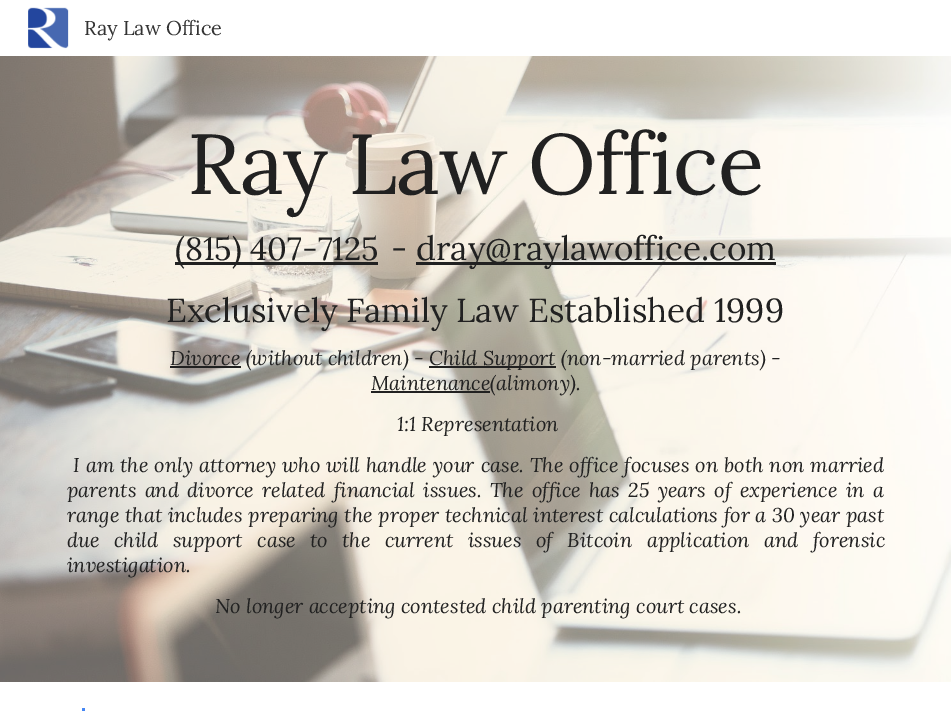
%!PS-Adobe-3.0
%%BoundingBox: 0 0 951 711
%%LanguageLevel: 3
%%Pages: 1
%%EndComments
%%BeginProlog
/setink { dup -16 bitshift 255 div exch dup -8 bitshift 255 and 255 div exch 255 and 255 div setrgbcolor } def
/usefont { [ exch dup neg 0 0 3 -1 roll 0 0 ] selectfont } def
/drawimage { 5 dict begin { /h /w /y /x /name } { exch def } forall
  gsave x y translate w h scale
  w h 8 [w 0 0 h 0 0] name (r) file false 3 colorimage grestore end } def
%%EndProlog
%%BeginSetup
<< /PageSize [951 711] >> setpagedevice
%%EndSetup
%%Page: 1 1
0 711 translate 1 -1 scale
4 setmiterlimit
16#FFFFFF setink
0 0 951 711 rectfill
(img1.raw) 28 7 41 42 drawimage
/Lora-Regular 20 usefont
16#333333 setink
84 35 moveto (Ray Law Office) show
(img2.raw) 0 56 951 626 drawimage
/Lora-Regular 85.25 usefont
16#212121 setink
187 194 moveto -1 0 (Ray Law Office) ashow
175 262 203 3 rectfill
/Lora-Regular 32 usefont
175 260 moveto (\(815\) 407-7125) show
/Lora-Regular 33.3 usefont
391 260 moveto (-) show
416 262 360 3 rectfill
416 260 moveto (dray@raylawoffice.com) show
166 322 moveto (Exclusively Family Law Established 1999) show
170 366 71 2 rectfill
/Lora-Italic 20 usefont
170 365 moveto (Divorce \(without children\) -) show
429 366 127 2 rectfill
429 365 moveto (Child Support \(non-married parents\) -) show
371 391 119 2 rectfill
371 390 moveto (Maintenance\(alimony\).) show
397 431 moveto (1:1 Representation) show
73 472 moveto 0.75 0 32 (I am the only attorney who will handle your case. The office focuses on both non married) widthshow
67 497 moveto 3.1 0 32 (parents and divorce related financial issues. The office has 25 years of experience in a) widthshow
67 522 moveto 0.4 0 32 (range that includes preparing the proper technical interest calculations for a 30 year past) widthshow
67 547 moveto 9.25 0 32 (due child support case to) widthshow
342 547 moveto 9.25 0 32 (the current issues of Bitcoin application and forensic) widthshow
67 572 moveto (investigation.) show
215 613 moveto (No longer accepting contested child parenting court cases.) show
gsave
70 708 14 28 rectclip
16#4486F4 setink
3 setlinewidth
82.5 710 moveto 99 708.5 101 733.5 84.5 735 curveto stroke
grestore
gsave
82 708 3 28 rectclip
16#4486F4 setink
3 setlinewidth
75 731 moveto 72 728 71 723.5 71.5 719.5 curveto 74.5 705 96.5 707 96.5 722 curveto 96.5 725.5 95 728.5 93 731 curveto stroke
grestore
gsave
84 708 14 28 rectclip
16#4486F4 setink
3 setlinewidth
82.5 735 moveto 66 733.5 68.5 708.5 84.5 710 curveto stroke
grestore
gsave
70 708 14 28 rectclip
16#4486F4 setink
3 setlinewidth
82.5 710 moveto 99 708.5 101 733.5 84.5 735 curveto 82.5 710 moveto 99 708.5 101 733.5 84.5 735 curveto 82.5 710 moveto 99 708.5 101 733.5 84.5 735 curveto stroke
grestore
showpage
%%EOF
